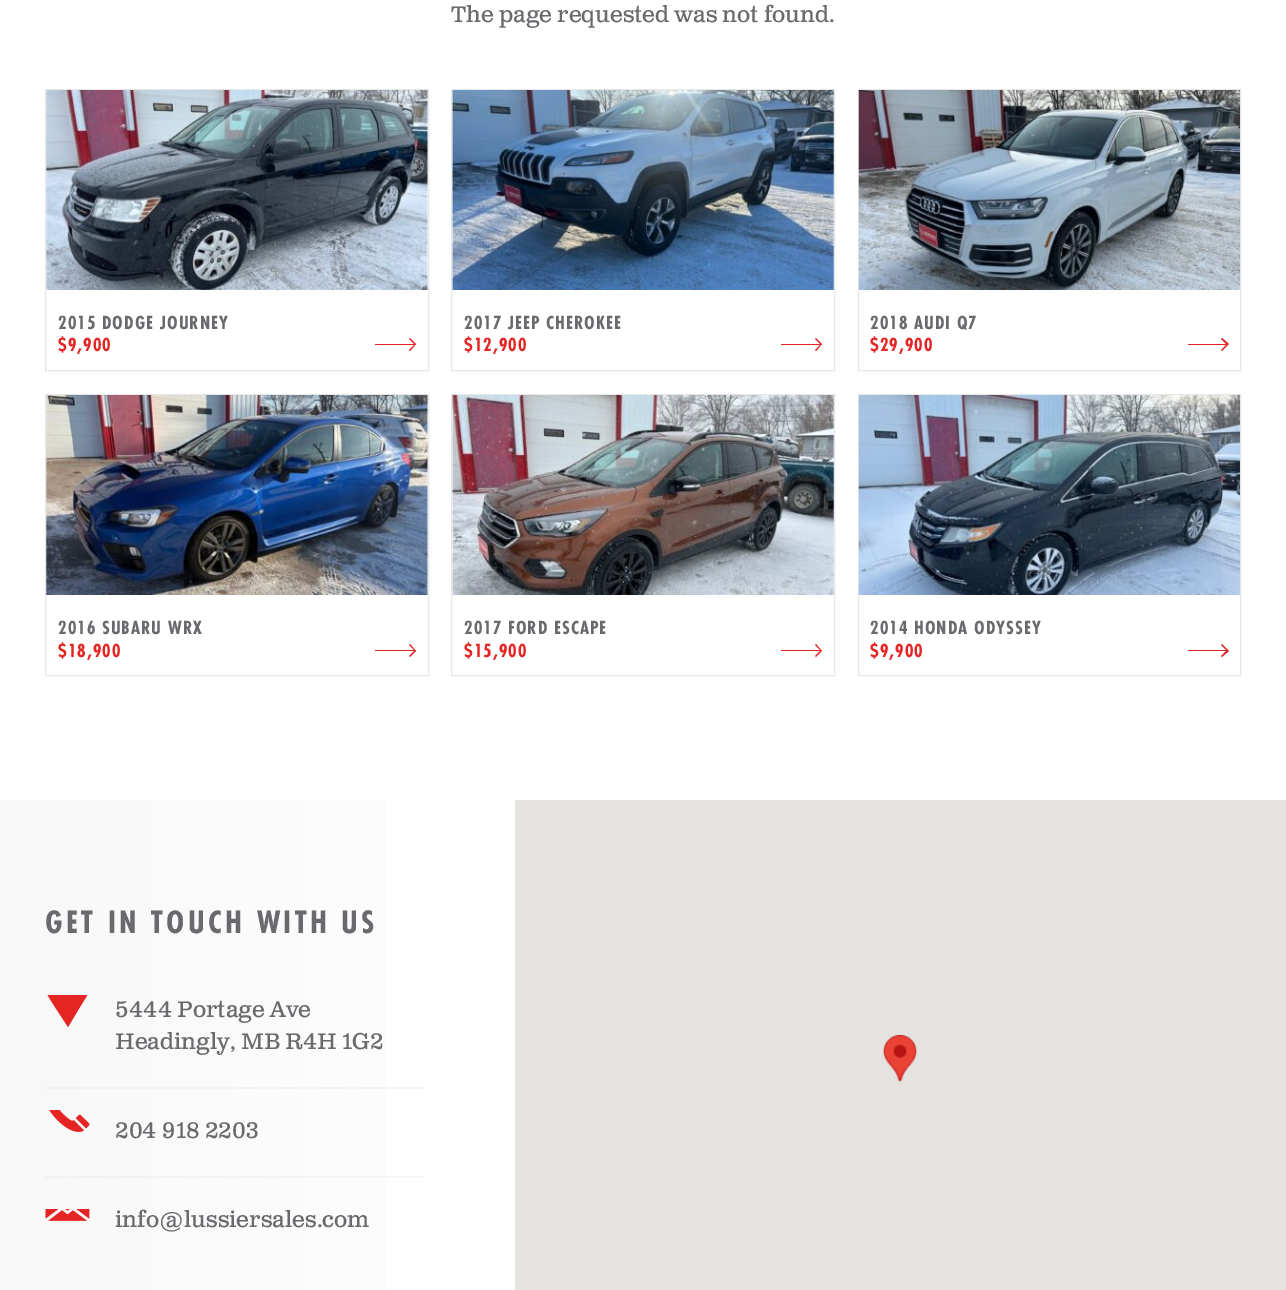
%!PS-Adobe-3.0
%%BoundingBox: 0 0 1286 1290
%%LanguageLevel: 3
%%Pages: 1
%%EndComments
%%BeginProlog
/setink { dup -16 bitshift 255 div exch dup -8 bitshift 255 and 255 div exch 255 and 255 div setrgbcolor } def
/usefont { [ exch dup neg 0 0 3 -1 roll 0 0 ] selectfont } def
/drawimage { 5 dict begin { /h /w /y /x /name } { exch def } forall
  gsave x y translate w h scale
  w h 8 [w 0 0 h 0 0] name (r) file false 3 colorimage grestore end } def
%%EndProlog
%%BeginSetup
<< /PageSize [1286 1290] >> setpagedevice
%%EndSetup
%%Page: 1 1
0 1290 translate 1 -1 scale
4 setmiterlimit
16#FFFFFF setink
0 0 1286 1290 rectfill
/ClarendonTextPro-Regular 22.5 usefont
16#696A6D setink
451 22 moveto (The page requested was not found.) show
16#E6E7E8 setink
45.5 89.5 383 281 rectstroke
(img1.raw) 46 90 382 200 drawimage
/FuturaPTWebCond-Bold 19.75 usefont
16#696A6D setink
58 329 moveto 1 0 (2015 DODGE JOURNEY) ashow
16#E52424 setink
58 351 moveto 1 0 ($9,900) ashow
410 338 moveto 409 339 lineto 414 344 lineto 375 344 lineto 375 345 lineto 414 345 lineto 409 350 lineto 410 351 lineto 416 344 lineto closepath fill
16#E6E7E8 setink
451.5 89.5 383 281 rectstroke
(img2.raw) 452 90 382 200 drawimage
16#696A6D setink
464 329 moveto 1 0 (2017 JEEP CHEROKEE) ashow
16#E52424 setink
464 351 moveto 1 0 ($12,900) ashow
816 338 moveto 815 339 lineto 820 344 lineto 781 344 lineto 781 345 lineto 820 345 lineto 815 350 lineto 816 351 lineto 822 344 lineto closepath fill
16#E6E7E8 setink
858.5 89.5 382 281 rectstroke
(img3.raw) 858 90 382 200 drawimage
16#696A6D setink
870 329 moveto 1 0 (2018 AUDI Q7) ashow
16#E52424 setink
870 351 moveto 1 0 ($29,900) ashow
1222 338 moveto 1221 339 lineto 1226 344 lineto 1188 344 lineto 1188 345 lineto 1226 345 lineto 1221 350 lineto 1222 351 lineto 1229 344 lineto closepath fill
16#E6E7E8 setink
45.5 394.5 383 281 rectstroke
(img4.raw) 46 395 382 200 drawimage
16#696A6D setink
58 634 moveto 1 0 (2016 SUBARU WRX) ashow
16#E52424 setink
58 657 moveto 1 0 ($18,900) ashow
410 644 moveto 409 645 lineto 414 650 lineto 375 650 lineto 375 651 lineto 414 651 lineto 409 656 lineto 410 657 lineto 416 651 lineto closepath fill
16#E6E7E8 setink
451.5 394.5 383 281 rectstroke
(img5.raw) 452 395 382 200 drawimage
16#696A6D setink
464 634 moveto 1 0 (2017 FORD ESCAPE) ashow
16#E52424 setink
464 657 moveto 1 0 ($15,900) ashow
816 644 moveto 815 645 lineto 820 650 lineto 781 650 lineto 781 651 lineto 820 651 lineto 815 656 lineto 816 657 lineto 822 651 lineto closepath fill
16#E6E7E8 setink
858.5 394.5 382 281 rectstroke
(img6.raw) 858 395 382 200 drawimage
16#696A6D setink
870 634 moveto 1 0 (2014 HONDA ODYSSEY) ashow
16#E52424 setink
870 657 moveto 1 0 ($9,900) ashow
1222 644 moveto 1221 645 lineto 1226 650 lineto 1188 650 lineto 1188 651 lineto 1226 651 lineto 1221 656 lineto 1222 657 lineto 1229 651 lineto closepath fill
gsave 0 800 moveto 386 800 lineto 386 1290 lineto 0 1290 lineto closepath clip newpath
<< /ShadingType 2 /ColorSpace /DeviceRGB /Coords [515 1081 0 1081] /Extend [true true] /Function << /FunctionType 2 /Domain [0 1] /C0 [0.996 1 1] /C1 [0.973 0.973 0.976] /N 1 >> >> shfill grestore
/FuturaPTWebCond-Bold 33.75 usefont
16#696A6D setink
45 933 moveto 3.4 0 (GET IN TOUCH WITH US) ashow
16#E6E7E8 setink
1.2 setlinewidth
[1.25 1.25] 0 setdash
45 1088 moveto 425 1088 lineto stroke
gsave
45 995 45 65 rectclip
16#E52424 setink
67 991 moveto 59 991 59 979 67 979 curveto 76 979 76 991 67 991 curveto 90 985 moveto 90 979 87 974 83 969 curveto 67 954 40 969 46 991 curveto 48 997 52 1002 55 1007 curveto 68 1027 lineto 80 1007 lineto 84 1000 90 993 90 985 curveto fill
grestore
/ClarendonTextPro-Regular 22.5 usefont
16#696A6D setink
115 1017 moveto (5444 Portage Ave) show
115 1049 moveto (Headingly, MB R4H 1G2) show
16#E6E7E8 setink
45 1177 moveto 425 1177 lineto stroke
(img7.raw) 49 1110 41 22 drawimage
16#696A6D setink
115 1138 moveto (204 918 2203) show
(img8.raw) 45 1209 45 12 drawimage
115 1227 moveto (info@lussiersales.com) show
16#E5E3DF setink
515 800 771 490 rectfill
(img9.raw) 883 1035 34 47 drawimage
showpage
%%EOF
